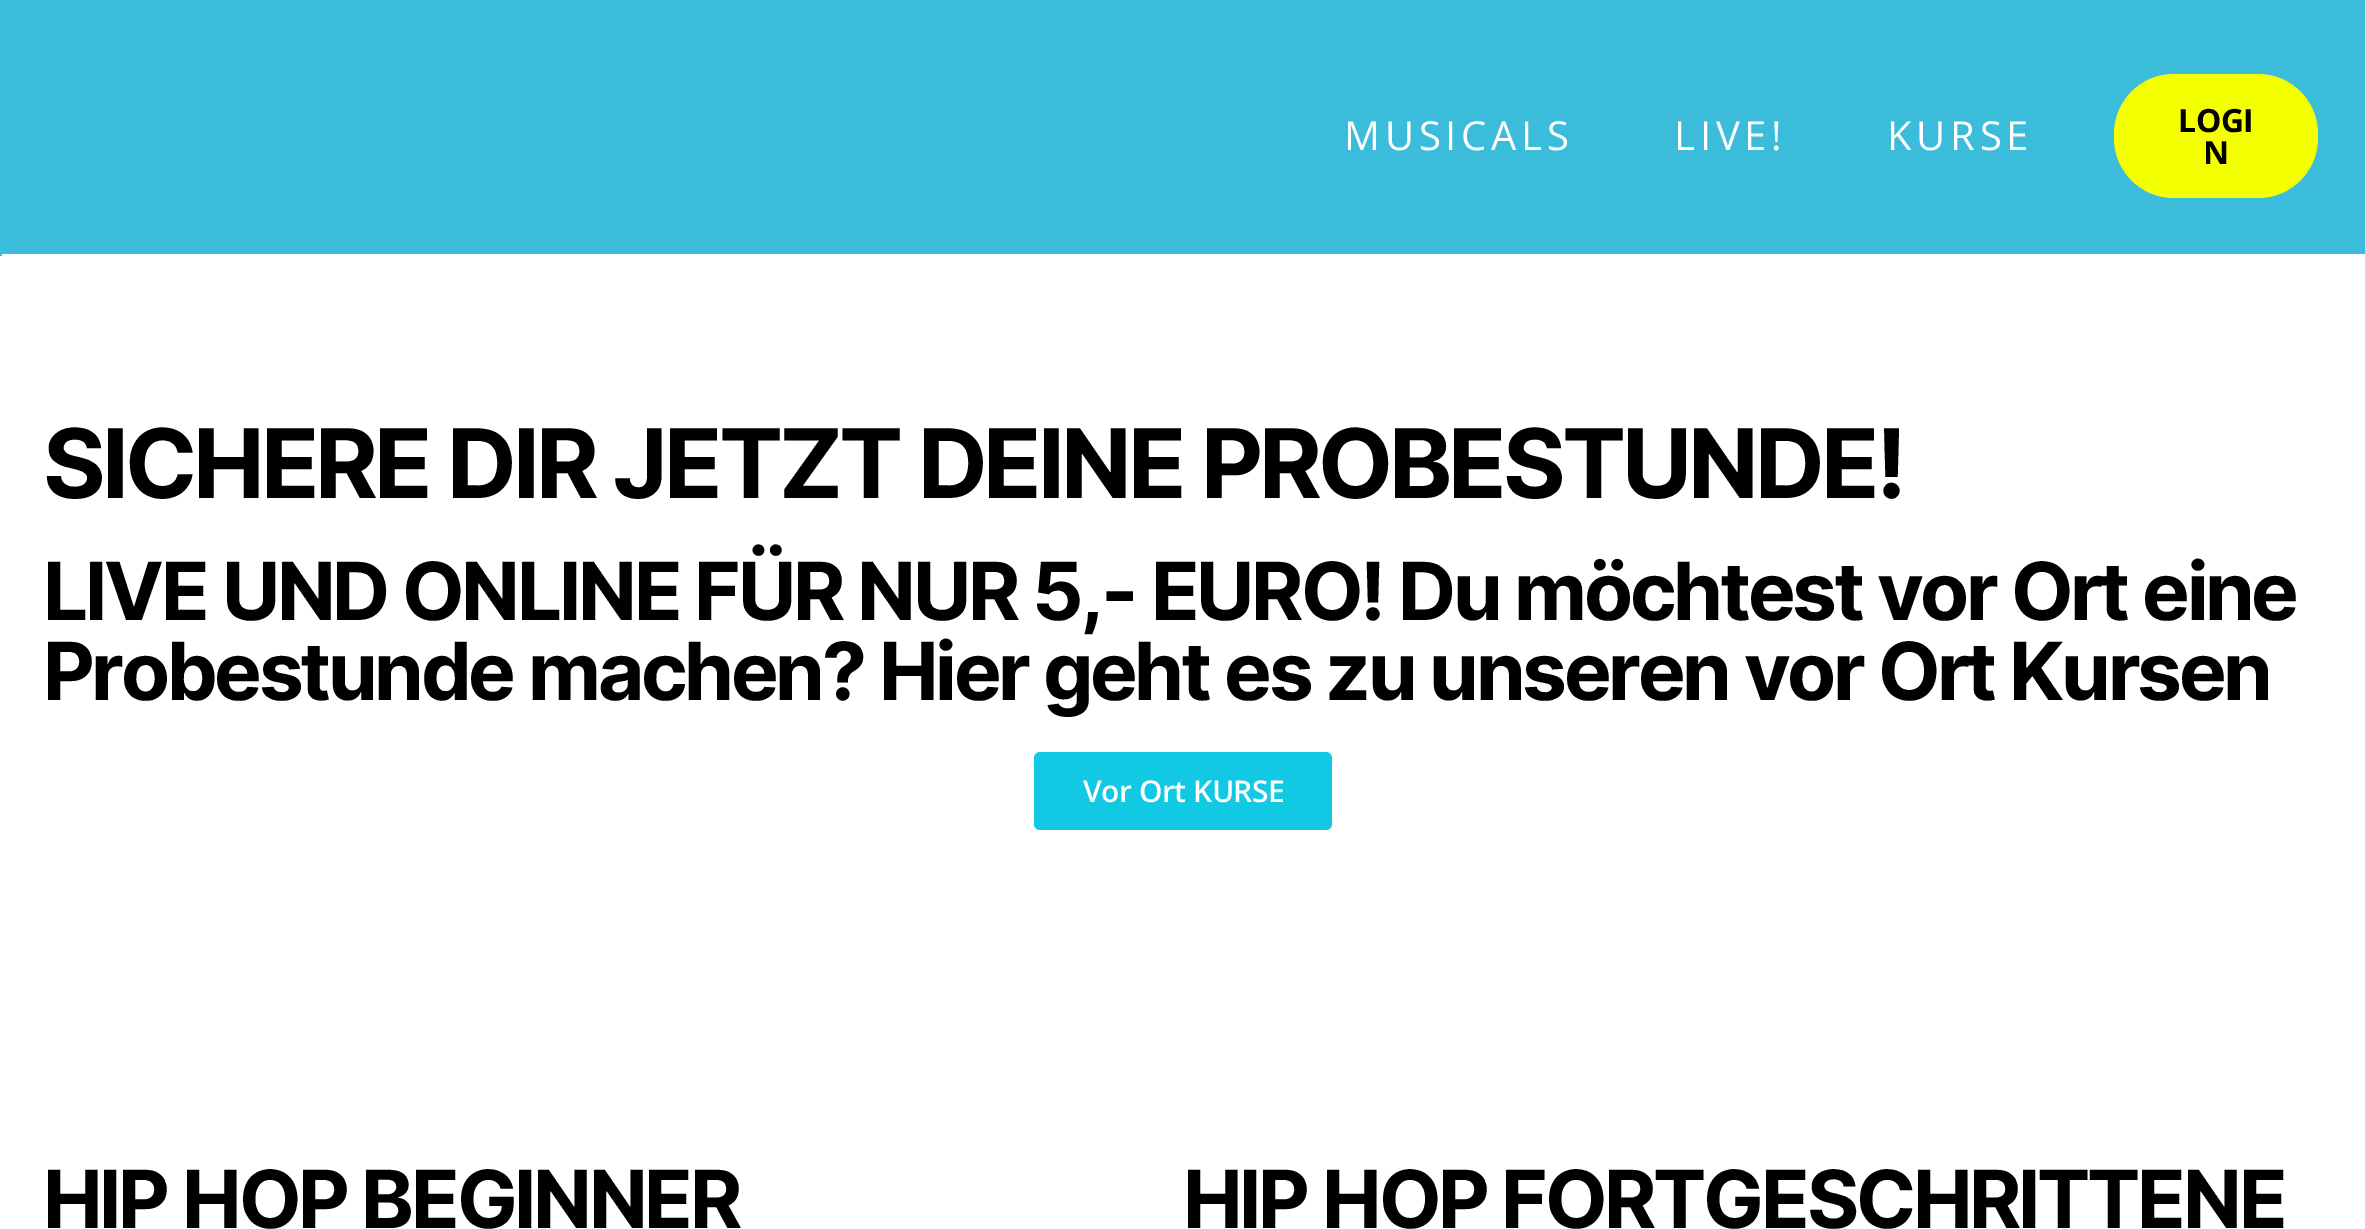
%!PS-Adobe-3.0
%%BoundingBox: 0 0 2365 1229
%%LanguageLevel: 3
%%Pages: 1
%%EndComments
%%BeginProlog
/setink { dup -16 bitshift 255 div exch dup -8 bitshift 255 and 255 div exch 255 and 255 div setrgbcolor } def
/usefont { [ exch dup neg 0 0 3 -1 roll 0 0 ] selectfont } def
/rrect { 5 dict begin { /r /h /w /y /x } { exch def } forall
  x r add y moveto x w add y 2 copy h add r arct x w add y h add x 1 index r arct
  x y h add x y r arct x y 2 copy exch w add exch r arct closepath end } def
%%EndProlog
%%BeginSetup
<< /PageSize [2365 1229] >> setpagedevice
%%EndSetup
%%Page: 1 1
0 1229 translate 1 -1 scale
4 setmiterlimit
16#FFFFFF setink
0 0 2365 1229 rectfill
16#3BBCDA setink
0 0 2365 256 rectfill
/OpenSans-Regular 40 usefont
16#FFFFFF setink
1344 150 moveto 4.75 0 (MUSICALS) ashow
1674 150 moveto 4.75 0 (LIVE!) ashow
1887 150 moveto 4.75 0 (KURSE) ashow
16#F4FF00 setink
2114 74 204 124 60 rrect fill
/OpenSans-Bold 32 usefont
16#000000 setink
2178 132 moveto -0.5 0 (LOGI) ashow
2203 164 moveto -0.5 0 (N) ashow
gsave
2 254 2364 236 rectclip
16#FFFFFF setink
1 268 moveto 1 254 lineto 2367 254 lineto 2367 491 lineto closepath fill
grestore
/Inter-Bold 96 usefont
43 498 moveto -4 0 (SICHERE DIR JETZT DEINE PROBESTUNDE!) ashow
/Inter-Bold 80 usefont
43 620 moveto -3.33 0 (LIVE UND ONLINE FÜR NUR 5,- EURO! Du möchtest vor Ort eine) ashow
43 700 moveto -3.33 0 (Probestunde machen? Hier geht es zu unseren vor Ort Kursen) ashow
16#12C9E4 setink
1034 752 298 78 6 rrect fill
/OpenSans-SemiBold 30 usefont
16#FFFFFF setink
1083 802 moveto -0.5 0 (Vor Ort KURSE) ashow
/Inter-Bold 80 usefont
16#000000 setink
43 1228 moveto -3.33 0 (HIP HOP BEGINNER) ashow
1183 1228 moveto -3.33 0 (HIP HOP FORTGESCHRITTENE) ashow
showpage
%%EOF
